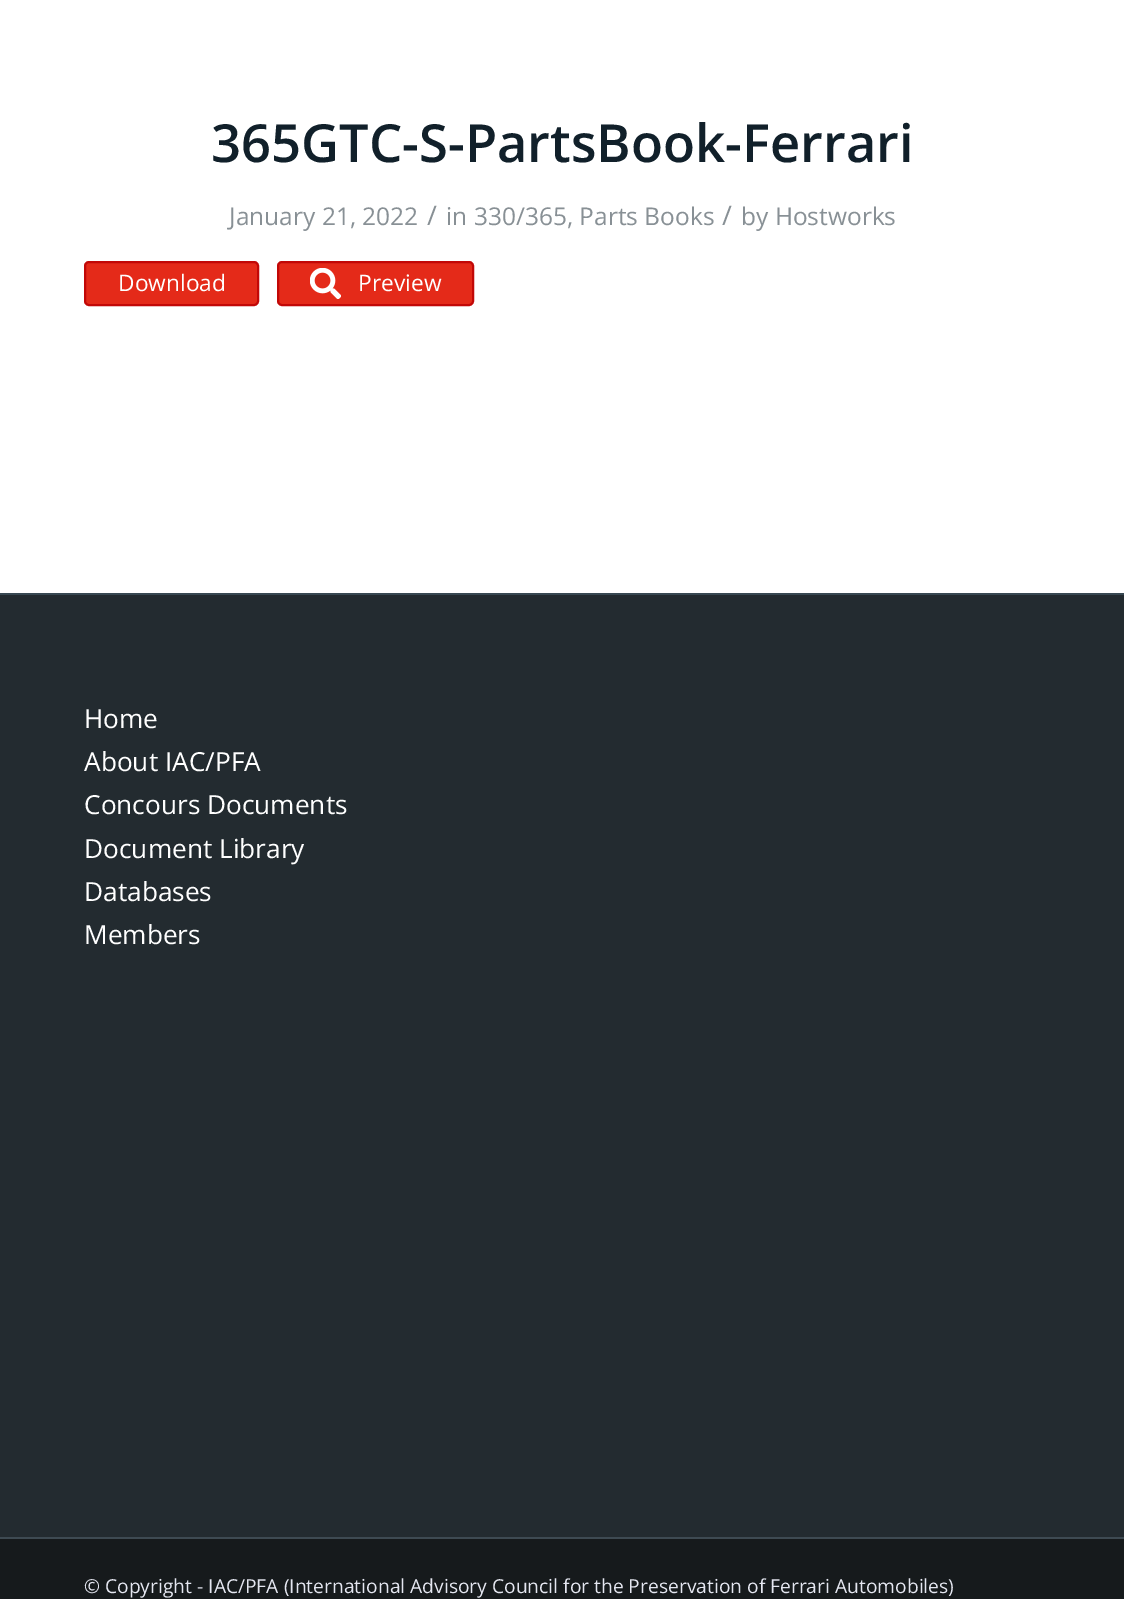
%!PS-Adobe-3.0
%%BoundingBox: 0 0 1124 1599
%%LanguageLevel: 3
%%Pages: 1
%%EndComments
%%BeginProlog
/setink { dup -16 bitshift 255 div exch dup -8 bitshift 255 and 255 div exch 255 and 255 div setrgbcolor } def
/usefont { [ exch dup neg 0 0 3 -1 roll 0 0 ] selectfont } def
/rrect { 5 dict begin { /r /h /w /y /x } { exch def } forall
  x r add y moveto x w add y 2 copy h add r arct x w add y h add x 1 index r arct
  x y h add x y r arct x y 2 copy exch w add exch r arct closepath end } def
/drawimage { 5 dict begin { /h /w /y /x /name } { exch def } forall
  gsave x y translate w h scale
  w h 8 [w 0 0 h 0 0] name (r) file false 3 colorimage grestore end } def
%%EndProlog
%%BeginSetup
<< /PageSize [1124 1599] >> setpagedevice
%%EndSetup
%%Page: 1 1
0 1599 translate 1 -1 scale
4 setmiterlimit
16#FFFFFF setink
0 0 1124 1599 rectfill
/OpenSans-SemiBold 52.5 usefont
16#11202A setink
211 162 moveto (365GTC-S-PartsBook-Ferrari) show
/OpenSans-Regular 24.5 usefont
16#889095 setink
229 225 moveto (January 21, 2022) show
/OpenSans-Regular 27 usefont
427 225 moveto (/) show
/OpenSans-Regular 24.5 usefont
446 225 moveto (in 330/365, Parts Books) show
/OpenSans-Regular 27 usefont
722 225 moveto (/) show
/OpenSans-Regular 24.5 usefont
741 225 moveto (by Hostworks) show
16#E42A19 setink
85 262 173 43 4 rrect gsave fill grestore
16#C20807 setink
2 setlinewidth
stroke
/OpenSans-Regular 22.75 usefont
16#FFFFFF setink
118 291 moveto (Download) show
16#E42A19 setink
278 262 195 43 4 rrect gsave fill grestore
16#C20807 setink
stroke
(img1.raw) 310 268 31 31 drawimage
16#FFFFFF setink
358 291 moveto (Preview) show
16#232B30 setink
0 595 1124 942 rectfill
16#384852 setink
0 593 1124 2 rectfill
/OpenSans-Regular 26.25 usefont
16#FFFFFF setink
[
    [(Home) 84 728]
    [(About IAC/PFA) 84 771]
    [(Concours Documents) 84 814]
    [(Document Library) 84 858]
    [(Databases) 84 901]
    [(Members) 84 944]
] { aload pop moveto show } forall
16#161A1C setink
0 1539 1124 60 rectfill
16#3E4A52 setink
0 1537 1124 2 rectfill
/OpenSans-Regular 19.25 usefont
16#E4E6F0 setink
84 1593 moveto (© Copyright - IAC/PFA \(International Advisory Council for the Preservation of Ferrari Automobiles\)) show
showpage
%%EOF
